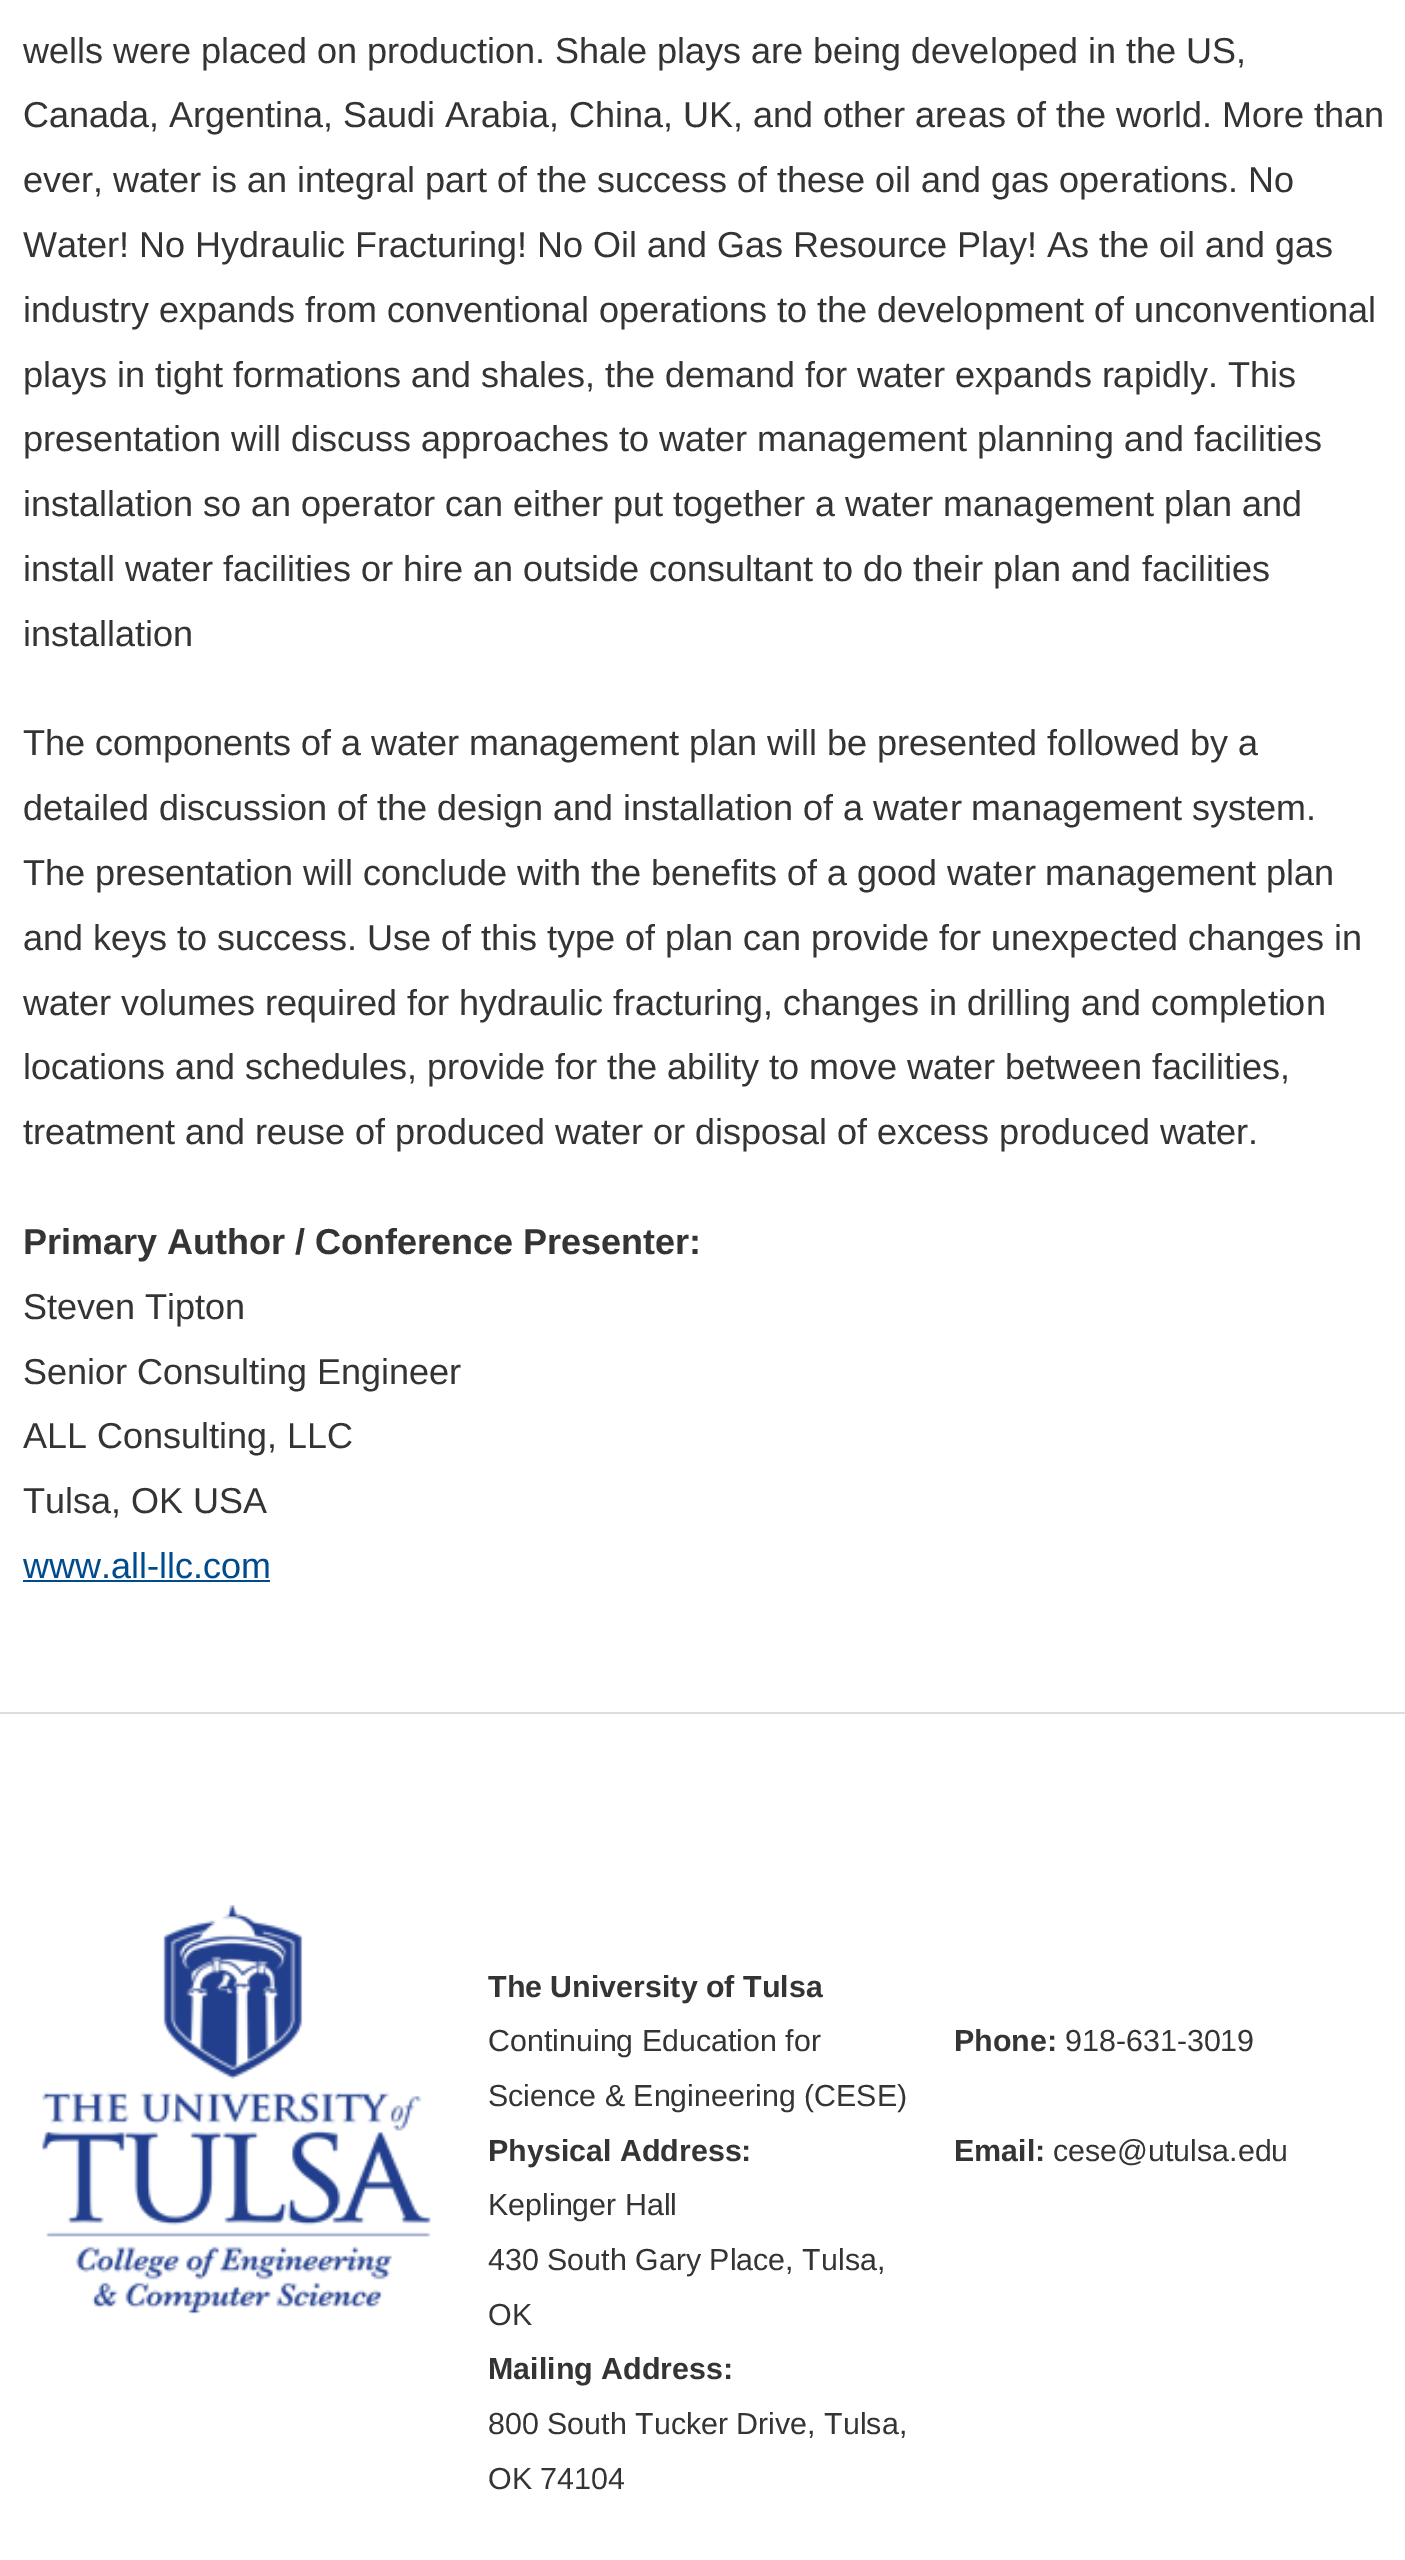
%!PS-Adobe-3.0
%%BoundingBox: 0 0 1405 2560
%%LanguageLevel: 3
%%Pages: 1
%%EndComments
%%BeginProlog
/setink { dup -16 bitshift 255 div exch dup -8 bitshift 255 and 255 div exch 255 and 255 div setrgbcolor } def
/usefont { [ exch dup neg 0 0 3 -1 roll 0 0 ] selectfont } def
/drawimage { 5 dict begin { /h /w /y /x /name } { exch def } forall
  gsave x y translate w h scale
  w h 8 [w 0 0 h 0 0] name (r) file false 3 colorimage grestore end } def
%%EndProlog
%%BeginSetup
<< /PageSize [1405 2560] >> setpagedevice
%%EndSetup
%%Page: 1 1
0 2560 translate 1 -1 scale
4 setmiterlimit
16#FFFFFF setink
0 0 1405 2560 rectfill
/LiberationSans-Regular 36 usefont
16#343434 setink
[
    [(wells were placed on production. Shale plays are being developed in the US,) 23 63]
    [(Canada, Argentina, Saudi Arabia, China, UK, and other areas of the world. More than) 23 127]
    [(ever, water is an integral part of the success of these oil and gas operations. No) 23 192]
    [(Water! No Hydraulic Fracturing! No Oil and Gas Resource Play! As the oil and gas) 23 257]
    [(industry expands from conventional operations to the development of unconventional) 23 322]
    [(plays in tight formations and shales, the demand for water expands rapidly. This) 23 387]
    [(presentation will discuss approaches to water management planning and facilities) 23 451]
    [(installation so an operator can either put together a water management plan and) 23 516]
    [(install water facilities or hire an outside consultant to do their plan and facilities) 23 581]
    [(installation) 23 646]
    [(The components of a water management plan will be presented followed by a) 23 755]
    [(detailed discussion of the design and installation of a water management system.) 23 820]
    [(The presentation will conclude with the benefits of a good water management plan) 23 885]
    [(and keys to success. Use of this type of plan can provide for unexpected changes in) 23 950]
    [(water volumes required for hydraulic fracturing, changes in drilling and completion) 23 1015]
    [(locations and schedules, provide for the ability to move water between facilities,) 23 1079]
    [(treatment and reuse of produced water or disposal of excess produced water.) 23 1144]
] { aload pop moveto show } forall
/LiberationSans-Bold 36 usefont
23 1254 moveto (Primary Author / Conference Presenter:) show
/LiberationSans-Regular 36 usefont
[
    [(Steven Tipton) 23 1319]
    [(Senior Consulting Engineer) 23 1384]
    [(ALL Consulting, LLC) 23 1448]
    [(Tulsa, OK USA) 23 1513]
] { aload pop moveto show } forall
16#004B8D setink
23 1578 moveto (www.all-llc.com) show
23 1580 247 2 rectfill
16#DDDDDD setink
0 1712 1405 2 rectfill
(img1.raw) 42 1905 389 410 drawimage
/LiberationSans-Bold 30.4 usefont
16#343434 setink
488 1997 moveto (The University of Tulsa) show
/LiberationSans-Regular 30.4 usefont
488 2051 moveto (Continuing Education for) show
488 2106 moveto (Science & Engineering \(CESE\)) show
/LiberationSans-Bold 30.4 usefont
488 2161 moveto (Physical Address:) show
/LiberationSans-Regular 30.4 usefont
[
    [(Keplinger Hall) 488 2215]
    [(430 South Gary Place, Tulsa,) 488 2270]
    [(OK) 488 2325]
] { aload pop moveto show } forall
/LiberationSans-Bold 30.4 usefont
488 2379 moveto (Mailing Address:) show
/LiberationSans-Regular 30.4 usefont
488 2434 moveto (800 South Tucker Drive, Tulsa,) show
488 2489 moveto (OK 74104) show
/LiberationSans-Bold 30.4 usefont
954 2051 moveto (Phone:) show
/LiberationSans-Regular 30.4 usefont
1065 2051 moveto (918-631-3019) show
/LiberationSans-Bold 30.4 usefont
954 2161 moveto (Email:) show
/LiberationSans-Regular 30.4 usefont
1053 2161 moveto (cese@utulsa.edu) show
showpage
%%EOF
